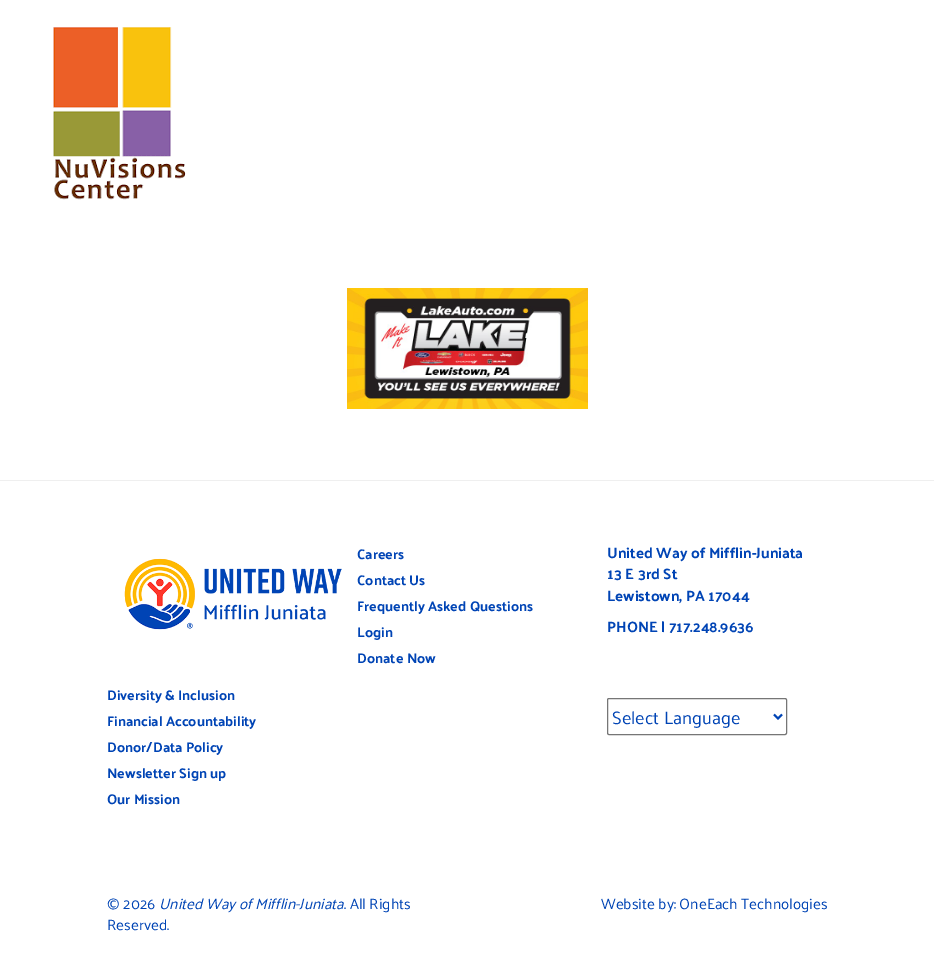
%!PS-Adobe-3.0
%%BoundingBox: 0 0 934 954
%%LanguageLevel: 3
%%Pages: 1
%%EndComments
%%BeginProlog
/setink { dup -16 bitshift 255 div exch dup -8 bitshift 255 and 255 div exch 255 and 255 div setrgbcolor } def
/usefont { [ exch dup neg 0 0 3 -1 roll 0 0 ] selectfont } def
/rrect { 5 dict begin { /r /h /w /y /x } { exch def } forall
  x r add y moveto x w add y 2 copy h add r arct x w add y h add x 1 index r arct
  x y h add x y r arct x y 2 copy exch w add exch r arct closepath end } def
/drawimage { 5 dict begin { /h /w /y /x /name } { exch def } forall
  gsave x y translate w h scale
  w h 8 [w 0 0 h 0 0] name (r) file false 3 colorimage grestore end } def
%%EndProlog
%%BeginSetup
<< /PageSize [934 954] >> setpagedevice
%%EndSetup
%%Page: 1 1
0 954 translate 1 -1 scale
4 setmiterlimit
16#FFFFFF setink
0 0 934 954 rectfill
(img1.raw) 53 27 133 173 drawimage
(img2.raw) 347 288 241 121 drawimage
16#EFEFEF setink
0 480 934 1 rectfill
/Palanquin-Bold 14 usefont
16#0044B5 setink
[
    [(Careers) 357 559]
    [(Contact Us) 357 585]
    [(Frequently Asked Questions) 357 611]
    [(Login) 357 637]
    [(Donate Now) 357 663]
] { aload pop moveto show } forall
/Palanquin-Bold 15 usefont
[
    [(United Way of Mifflin-Juniata) 607 558]
    [(13 E 3rd St) 607 579]
    [(Lewistown, PA 17044) 607 601]
    [(PHONE | 717.248.9636) 607 632]
] { aload pop moveto show } forall
16#767676 setink
607.5 698.5 179 36 1.5 rrect stroke
16#0044B5 setink
2 setlinewidth
774 714.5 moveto 778 718.5 lineto 782 714.5 lineto stroke
/Palanquin-Regular 18 usefont
612 724 moveto (Select Language) show
(img3.raw) 124 558 218 72 drawimage
/Palanquin-Bold 14 usefont
[
    [(Diversity & Inclusion) 107 700]
    [(Financial Accountability) 107 726]
    [(Donor/Data Policy) 107 752]
    [(Newsletter Sign up) 107 778]
    [(Our Mission) 107 804]
] { aload pop moveto show } forall
/Palanquin-Regular 15 usefont
107 909 moveto (© 2026) show
/Palanquin-Italic 15 usefont
159 909 moveto (United Way of Mifflin-Juniata) show
/Palanquin-Regular 15 usefont
[
    [(. All Rights) 344 909]
    [(Reserved.) 107 930]
    [(Website by: OneEach Technologies) 601 909]
] { aload pop moveto show } forall
showpage
%%EOF
